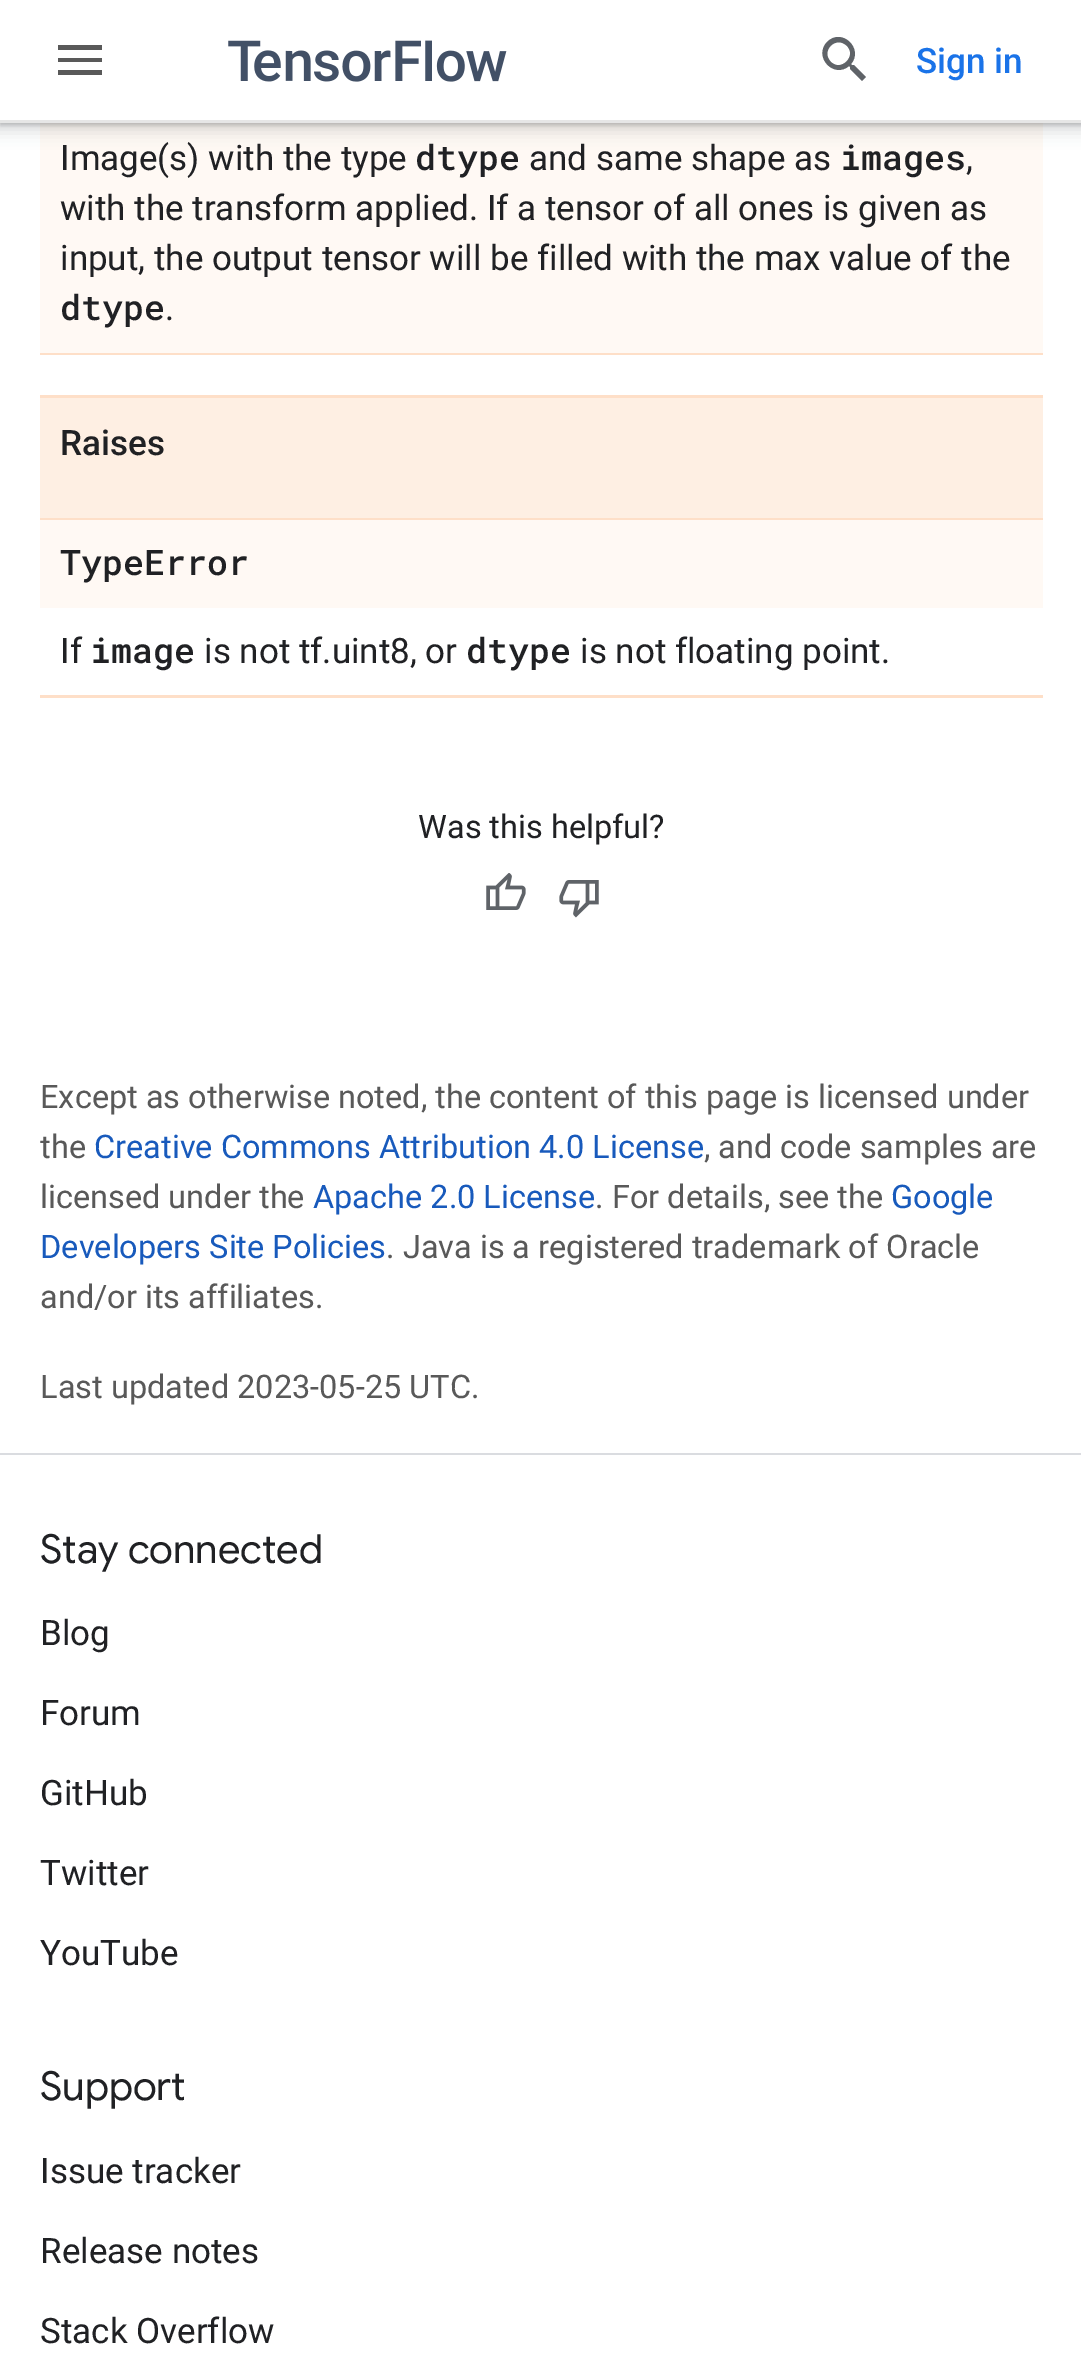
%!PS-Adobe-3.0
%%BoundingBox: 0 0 1081 2367
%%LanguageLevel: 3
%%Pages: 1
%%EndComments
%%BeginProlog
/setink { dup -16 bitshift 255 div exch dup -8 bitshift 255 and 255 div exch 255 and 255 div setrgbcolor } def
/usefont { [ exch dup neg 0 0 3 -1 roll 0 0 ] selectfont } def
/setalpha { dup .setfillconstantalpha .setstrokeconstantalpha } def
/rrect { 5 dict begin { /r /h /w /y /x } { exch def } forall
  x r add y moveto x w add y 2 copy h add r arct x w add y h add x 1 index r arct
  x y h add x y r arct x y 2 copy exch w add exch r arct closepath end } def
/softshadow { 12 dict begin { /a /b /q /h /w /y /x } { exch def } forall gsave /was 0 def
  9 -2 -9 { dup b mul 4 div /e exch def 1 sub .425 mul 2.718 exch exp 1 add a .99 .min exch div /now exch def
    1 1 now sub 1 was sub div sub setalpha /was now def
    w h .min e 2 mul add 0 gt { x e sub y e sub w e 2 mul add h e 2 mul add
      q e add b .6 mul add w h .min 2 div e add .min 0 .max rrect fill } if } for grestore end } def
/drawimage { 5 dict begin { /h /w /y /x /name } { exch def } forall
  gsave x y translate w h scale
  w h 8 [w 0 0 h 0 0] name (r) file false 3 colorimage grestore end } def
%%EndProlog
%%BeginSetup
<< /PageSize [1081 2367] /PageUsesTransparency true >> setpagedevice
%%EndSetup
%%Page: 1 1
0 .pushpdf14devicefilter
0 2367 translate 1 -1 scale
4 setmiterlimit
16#FFFFFF setink
0 0 1081 2367 rectfill
16#FFF9F4 setink
40 123 1003 230 rectfill
16#3C4043 setink
-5 -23 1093 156 0 7.5 0.15 softshadow
0 -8 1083 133 0 2.5 0.3 softshadow
16#FFFFFF setink
0 0 1081 120 rectfill
16#E6E6E6 setink
0 120 1081 3 rectfill
16#595959 setink
58 45 moveto 102 45 lineto 102 50 lineto 58 50 lineto closepath 58 62 moveto 58 58 lineto 102 58 lineto 102 62 lineto closepath 58 75 moveto 58 70 lineto 102 70 lineto 102 75 lineto closepath fill
(img1.raw) 228 40 279 42 drawimage
16#5F6368 setink
831 62 moveto 841 72 857 56 847 46 curveto 836 35 820 51 831 62 curveto closepath 854 65 moveto 866 77 lineto 862 81 lineto 850 69 lineto 850 67 lineto 849 66 lineto 834 79 813 57 827 42 curveto 842 27 864 49 851 64 curveto 852 65 lineto closepath fill
/Roboto-Medium 35 usefont
16#1A73E8 setink
916 73 moveto (Sign in) show
16#FEDFC8 setink
40 353 1003 2 rectfill
/Roboto-Regular 35 usefont
16#202124 setink
60 170 moveto (Image\(s\) with the type) show
/RobotoMono-Medium 35 usefont
415 170 moveto (dtype) show
/Roboto-Regular 35 usefont
529 170 moveto (and same shape as) show
/RobotoMono-Medium 35 usefont
840 170 moveto (images) show
/Roboto-Regular 35 usefont
[
    [(,) 966 170]
    [(with the transform applied. If a tensor of all ones is given as) 60 220]
    [(input, the output tensor will be filled with the max value of the) 60 270]
] { aload pop moveto show } forall
/RobotoMono-Medium 35 usefont
60 320 moveto (dtype) show
/Roboto-Regular 35 usefont
165 320 moveto (.) show
[
    [40 398 1003 120 16#FEEFE3]
    [40 395 1003 3 16#FEDFC8]
    [40 518 1003 2 16#FEDFC8]
] { aload pop setink rectfill } forall
/Roboto-Medium 35 usefont
16#202124 setink
60 455 moveto (Raises) show
16#FEDFC8 setink
40 695 1003 3 rectfill
16#FFF9F4 setink
40 520 1003 88 rectfill
/RobotoMono-Medium 35 usefont
16#202124 setink
60 575 moveto (TypeError) show
/Roboto-Regular 35 usefont
60 663 moveto (If) show
/RobotoMono-Medium 35 usefont
90 663 moveto (image) show
/Roboto-Regular 35 usefont
204 663 moveto (is not tf.uint8, or) show
/RobotoMono-Medium 35 usefont
466 663 moveto (dtype) show
/Roboto-Regular 35 usefont
580 663 moveto (is not floating point.) show
/Roboto-Regular 32.5 usefont
418 838 moveto (Was this helpful?) show
(img2.raw) 486 873 40 37 drawimage
(img3.raw) 559 880 40 38 drawimage
16#595959 setink
40 1108 moveto (Except as otherwise noted, the content of this page is licensed under) show
40 1158 moveto (the) show
16#185ABC setink
94 1158 moveto (Creative Commons Attribution 4.0 License) show
16#595959 setink
704 1158 moveto (, and code samples are) show
40 1208 moveto (licensed under the) show
16#185ABC setink
313 1208 moveto (Apache 2.0 License) show
16#595959 setink
595 1208 moveto (. For details, see the) show
16#185ABC setink
891 1208 moveto (Google) show
40 1258 moveto (Developers Site Policies) show
16#595959 setink
[
    [(. Java is a registered trademark of Oracle) 386 1258]
    [(and/or its affiliates.) 40 1308]
    [(Last updated 2023-05-25 UTC.) 40 1398]
] { aload pop moveto show } forall
16#DADCE0 setink
0 1453 1081 2 rectfill
/GoogleSans-Regular 40 usefont
16#202124 setink
40 1563 moveto (Stay connected) show
/Roboto-Regular 35 usefont
[
    [(Blog) 40 1645]
    [(Forum) 40 1725]
    [(GitHub) 40 1805]
    [(Twitter) 40 1885]
    [(YouTube) 40 1965]
] { aload pop moveto show } forall
/GoogleSans-Regular 40 usefont
40 2100 moveto (Support) show
/Roboto-Regular 35 usefont
[
    [(Issue tracker) 40 2183]
    [(Release notes) 40 2263]
    [(Stack Overflow) 40 2343]
] { aload pop moveto show } forall
.poppdf14devicefilter showpage
%%EOF
